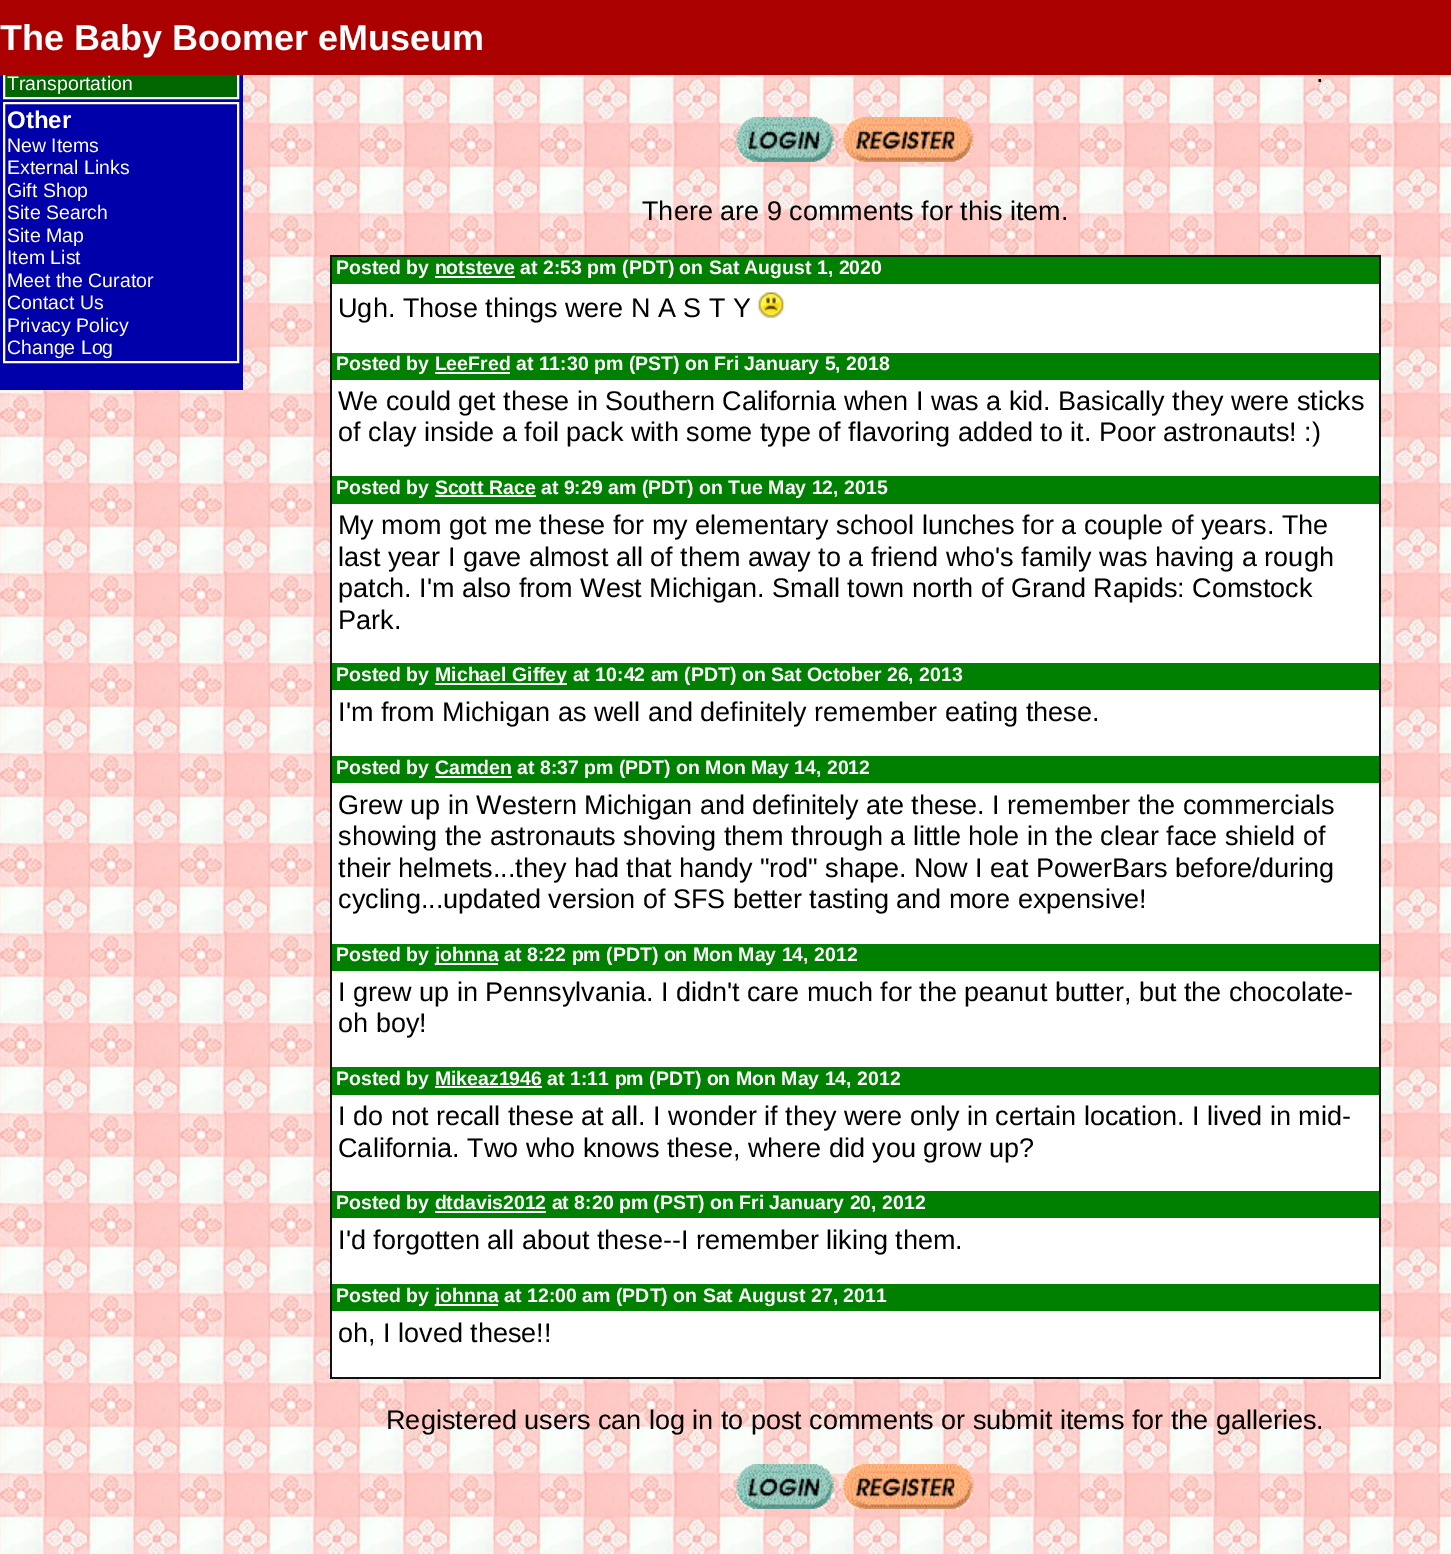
%!PS-Adobe-3.0
%%BoundingBox: 0 0 1451 1554
%%LanguageLevel: 3
%%Pages: 1
%%EndComments
%%BeginProlog
/setink { dup -16 bitshift 255 div exch dup -8 bitshift 255 and 255 div exch 255 and 255 div setrgbcolor } def
/usefont { [ exch dup neg 0 0 3 -1 roll 0 0 ] selectfont } def
/drawimage { 5 dict begin { /h /w /y /x /name } { exch def } forall
  gsave x y translate w h scale
  w h 8 [w 0 0 h 0 0] name (r) file false 3 colorimage grestore end } def
%%EndProlog
%%BeginSetup
<< /PageSize [1451 1554] >> setpagedevice
%%EndSetup
%%Page: 1 1
0 1554 translate 1 -1 scale
4 setmiterlimit
16#FFFFFF setink
0 0 1451 1554 rectfill
(img1.raw) 0 75 1451 1479 drawimage
16#0000AA setink
0 75 243 315 rectfill
16#006600 setink
5 75 232 22 rectfill
16#FFFFFF setink
2 setlinewidth
4 -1 234 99 rectstroke
16#AA0000 setink
0 0 1451 75 rectfill
/LiberationSans-Bold 36 usefont
16#FFFFFF setink
0 50 moveto (The Baby Boomer eMuseum) show
/LiberationSans-Regular 19.5 usefont
7 90 moveto (Transportation) show
4 103 234 259 rectstroke
/LiberationSans-Bold 24 usefont
7 128 moveto (Other) show
/LiberationSans-Regular 19.5 usefont
[
    [(New Items) 7 152]
    [(External Links) 7 174]
    [(Gift Shop) 7 197]
    [(Site Search) 7 219]
    [(Site Map) 7 242]
    [(Item List) 7 264]
    [(Meet the Curator) 7 287]
    [(Contact Us) 7 309]
    [(Privacy Policy) 7 332]
    [(Change Log) 7 354]
] { aload pop moveto show } forall
/LiberationSans-Regular 27 usefont
16#000000 setink
1316 82 moveto (.) show
(img2.raw) 736 117 98 45 drawimage
(img3.raw) 842 117 132 45 drawimage
642 220 moveto (There are 9 comments for this item.) show
[
    [332 284 1047 1093 16#FFFFFF]
    [330 255 1050 2 16#111111]
    [1379 255 2 1124 16#111111]
    [330 1377 1050 2 16#111111]
    [330 255 2 1124 16#111111]
    [332 257 1047 27 16#008000]
] { aload pop setink rectfill } forall
/LiberationSans-Bold 19.5 usefont
16#FFFFFF setink
336 274 moveto (Posted by notsteve at 2:53 pm \(PDT\) on Sat August 1, 2020) show
435 276 80 2 rectfill
/LiberationSans-Regular 27 usefont
16#000000 setink
338 317 moveto (Ugh. Those things were N A S T Y) show
(img4.raw) 757 291 28 27 drawimage
16#008000 setink
332 353 1047 27 rectfill
/LiberationSans-Bold 19.5 usefont
16#FFFFFF setink
336 370 moveto (Posted by LeeFred at 11:30 pm \(PST\) on Fri January 5, 2018) show
435 372 75 2 rectfill
/LiberationSans-Regular 27 usefont
16#000000 setink
338 410 moveto (We could get these in Southern California when I was a kid. Basically they were sticks) show
338 441 moveto (of clay inside a foil pack with some type of flavoring added to it. Poor astronauts! :\)) show
16#008000 setink
332 476 1047 28 rectfill
/LiberationSans-Bold 19.5 usefont
16#FFFFFF setink
336 494 moveto (Posted by Scott Race at 9:29 am \(PDT\) on Tue May 12, 2015) show
435 495 101 2 rectfill
/LiberationSans-Regular 27 usefont
16#000000 setink
[
    [(My mom got me these for my elementary school lunches for a couple of years. The) 338 534]
    [(last year I gave almost all of them away to a friend who's family was having a rough) 338 566]
    [(patch. I'm also from West Michigan. Small town north of Grand Rapids: Comstock) 338 597]
    [(Park.) 338 629]
] { aload pop moveto show } forall
16#008000 setink
332 663 1047 27 rectfill
/LiberationSans-Bold 19.5 usefont
16#FFFFFF setink
336 681 moveto (Posted by) show
435 683 132 2 rectfill
435 681 moveto (Michael Giffey at 10:42 am \(PDT\) on Sat October 26, 2013) show
/LiberationSans-Regular 27 usefont
16#000000 setink
338 721 moveto (I'm from Michigan as well and definitely remember eating these.) show
16#008000 setink
332 756 1047 27 rectfill
/LiberationSans-Bold 19.5 usefont
16#FFFFFF setink
336 774 moveto (Posted by Camden at 8:37 pm \(PDT\) on Mon May 14, 2012) show
435 776 77 2 rectfill
/LiberationSans-Regular 27 usefont
16#000000 setink
[
    [(Grew up in Western Michigan and definitely ate these. I remember the commercials) 338 814]
    [(showing the astronauts shoving them through a little hole in the clear face shield of) 338 845]
    [(their helmets...they had that handy "rod" shape. Now I eat PowerBars before/during) 338 877]
    [(cycling...updated version of SFS better tasting and more expensive!) 338 908]
] { aload pop moveto show } forall
16#008000 setink
332 944 1047 27 rectfill
/LiberationSans-Bold 19.5 usefont
16#FFFFFF setink
336 961 moveto (Posted by) show
435 963 63 2 rectfill
435 961 moveto (johnna at 8:22 pm \(PDT\) on Mon May 14, 2012) show
/LiberationSans-Regular 27 usefont
16#000000 setink
338 1001 moveto (I grew up in Pennsylvania. I didn't care much for the peanut butter, but the chocolate-) show
338 1032 moveto (oh boy!) show
16#008000 setink
332 1067 1047 28 rectfill
/LiberationSans-Bold 19.5 usefont
16#FFFFFF setink
336 1085 moveto (Posted by Mikeaz1946 at 1:11 pm \(PDT\) on Mon May 14, 2012) show
435 1086 107 2 rectfill
/LiberationSans-Regular 27 usefont
16#000000 setink
338 1125 moveto (I do not recall these at all. I wonder if they were only in certain location. I lived in mid-) show
338 1157 moveto (California. Two who knows these, where did you grow up?) show
16#008000 setink
332 1191 1047 27 rectfill
/LiberationSans-Bold 19.5 usefont
16#FFFFFF setink
336 1209 moveto (Posted by dtdavis2012 at 8:20 pm \(PST\) on Fri January 20, 2012) show
435 1211 111 2 rectfill
/LiberationSans-Regular 27 usefont
16#000000 setink
338 1249 moveto (I'd forgotten all about these--I remember liking them.) show
16#008000 setink
332 1284 1047 27 rectfill
/LiberationSans-Bold 19.5 usefont
16#FFFFFF setink
336 1302 moveto (Posted by) show
435 1304 63 2 rectfill
435 1302 moveto (johnna at 12:00 am \(PDT\) on Sat August 27, 2011) show
/LiberationSans-Regular 27 usefont
16#000000 setink
338 1342 moveto (oh, I loved these!!) show
386 1429 moveto (Registered users can log in to post comments or submit items for the galleries.) show
(img5.raw) 736 1464 98 45 drawimage
(img6.raw) 842 1464 132 45 drawimage
showpage
%%EOF
